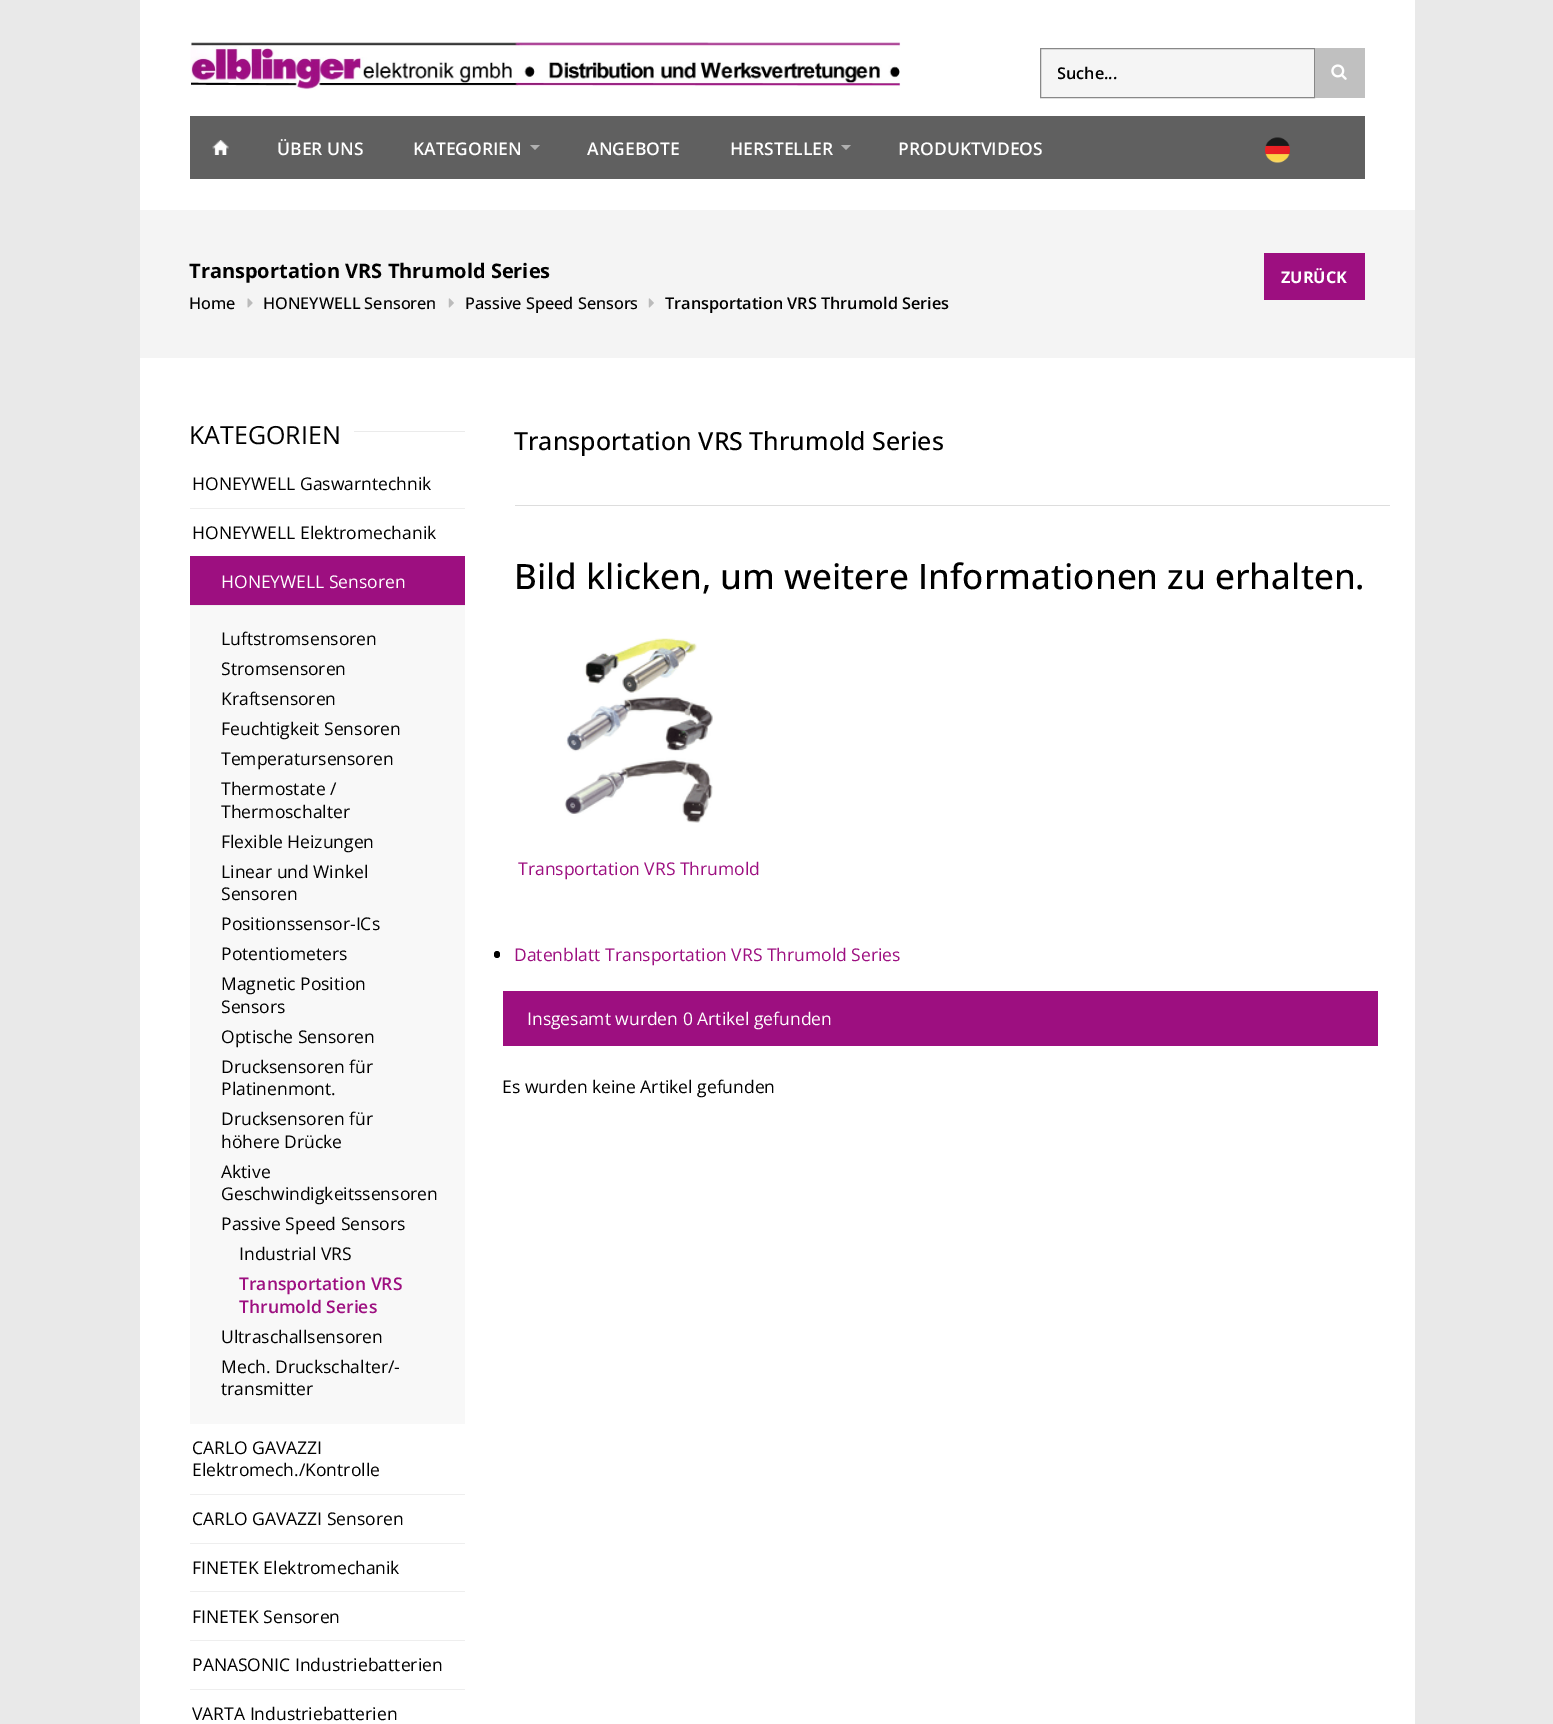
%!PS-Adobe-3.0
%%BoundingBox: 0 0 1553 1724
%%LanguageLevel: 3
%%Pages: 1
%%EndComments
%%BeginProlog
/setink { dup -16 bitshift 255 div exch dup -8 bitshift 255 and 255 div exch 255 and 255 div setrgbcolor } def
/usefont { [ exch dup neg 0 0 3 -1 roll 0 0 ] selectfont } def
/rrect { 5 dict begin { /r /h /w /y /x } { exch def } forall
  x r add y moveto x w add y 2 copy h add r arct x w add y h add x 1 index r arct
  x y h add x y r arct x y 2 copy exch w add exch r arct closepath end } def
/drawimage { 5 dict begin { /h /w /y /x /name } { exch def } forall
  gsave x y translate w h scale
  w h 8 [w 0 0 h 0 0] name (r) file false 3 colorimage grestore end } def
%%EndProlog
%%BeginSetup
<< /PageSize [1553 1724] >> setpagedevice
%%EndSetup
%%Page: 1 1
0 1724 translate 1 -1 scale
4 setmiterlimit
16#E9E9E9 setink
0 0 1553 1724 rectfill
16#FFFFFF setink
140 0 1275 1724 rectfill
(img1.raw) 190 42 711 48 drawimage
16#F5F5F5 setink
1040.5 48.5 moveto 1314.5 48.5 lineto 1314.5 97.5 lineto 1040.5 97.5 lineto closepath gsave fill grestore
16#888888 setink
stroke
gsave
1058 61 240 23 rectclip
/OpenSans-SemiBold 16.25 usefont
16#000000 setink
1057 79 moveto (Suche...) show
grestore
16#C0C0C0 setink
1315 48 50 50 rectfill
(img2.raw) 1331 64 16 16 drawimage
16#606060 setink
190 116 1175 63 rectfill
(img3.raw) 212 140 17 15 drawimage
/OpenSans-SemiBold 17.5 usefont
16#FFFFFF setink
277 155 moveto (ÜBER UNS) show
413 155 moveto (KATEGORIEN) show
16#B0B0B0 setink
530 145 moveto 540 145 lineto 535 150 lineto closepath fill
16#FFFFFF setink
587 155 moveto (ANGEBOTE) show
730 155 moveto (HERSTELLER) show
16#B0B0B0 setink
841 145 moveto 851 145 lineto 846 150 lineto closepath fill
16#FFFFFF setink
898 155 moveto (PRODUKTVIDEOS) show
(img4.raw) 1265 137 25 26 drawimage
16#F4F4F4 setink
140 210 1275 148 rectfill
/OpenSans-Bold 20 usefont
16#000000 setink
189 278 moveto (Transportation VRS Thrumold Series) show
/OpenSans-Medium 16.25 usefont
189 309 moveto (Home) show
(img5.raw) 247 298 6 10 drawimage
263 309 moveto (HONEYWELL Sensoren) show
(img6.raw) 448 298 6 10 drawimage
465 309 moveto (Passive Speed Sensors) show
(img6.raw) 648 298 6 10 drawimage
/OpenSans-SemiBold 16.25 usefont
665 309 moveto (Transportation VRS Thrumold Series) show
16#9D0F80 setink
1264 253 101 47 rectfill
/OpenSans-Bold 16.25 usefont
16#FFFFFF setink
1281 283 moveto (ZURÜCK) show
/OpenSans-Regular 25 usefont
16#000000 setink
189 444 moveto (KATEGORIEN) show
16#EBEBEB setink
354 431 111 1 rectfill
16#EEEEEE setink
190 508 275 1 rectfill
/OpenSans-Regular 17.5 usefont
16#000000 setink
192 490 moveto (HONEYWELL Gaswarntechnik) show
192 539 moveto (HONEYWELL Elektromechanik) show
16#9D0F80 setink
190 556 275 49 rectfill
16#EEEEEE setink
190 605 275 1 rectfill
16#FFFFFF setink
221 588 moveto (HONEYWELL Sensoren) show
16#F8F8F8 setink
190 606 275 818 rectfill
16#000000 setink
[
    [(Luftstromsensoren) 221 645]
    [(Stromsensoren) 221 675]
    [(Kraftsensoren) 221 705]
    [(Feuchtigkeit Sensoren) 221 735]
    [(Temperatursensoren) 221 765]
    [(Thermostate /) 221 795]
    [(Thermoschalter) 221 818]
    [(Flexible Heizungen) 221 848]
    [(Linear und Winkel) 221 878]
    [(Sensoren) 221 900]
    [(Positionssensor-ICs) 221 930]
    [(Potentiometers) 221 960]
    [(Magnetic Position) 221 990]
    [(Sensors) 221 1013]
    [(Optische Sensoren) 221 1043]
    [(Drucksensoren für) 221 1073]
    [(Platinenmont.) 221 1095]
    [(Drucksensoren für) 221 1125]
    [(höhere Drücke) 221 1148]
    [(Aktive) 221 1178]
    [(Geschwindigkeitssensoren) 221 1200]
    [(Passive Speed Sensors) 221 1230]
    [(Industrial VRS) 239 1260]
] { aload pop moveto show } forall
/OpenSans-SemiBold 17.5 usefont
16#9D0F80 setink
239 1290 moveto (Transportation VRS) show
239 1313 moveto (Thrumold Series) show
/OpenSans-Regular 17.5 usefont
16#000000 setink
[
    [(Ultraschallsensoren) 221 1343]
    [(Mech. Druckschalter/-) 221 1373]
    [(transmitter) 221 1395]
] { aload pop moveto show } forall
16#EEEEEE setink
190 1494 275 1 rectfill
16#000000 setink
192 1454 moveto (CARLO GAVAZZI) show
192 1476 moveto (Elektromech./Kontrolle) show
16#EEEEEE setink
190 1543 275 1 rectfill
16#000000 setink
192 1525 moveto (CARLO GAVAZZI Sensoren) show
16#EEEEEE setink
190 1591 275 1 rectfill
16#000000 setink
192 1574 moveto (FINETEK Elektromechanik) show
16#EEEEEE setink
190 1640 275 1 rectfill
16#000000 setink
192 1623 moveto (FINETEK Sensoren) show
16#EEEEEE setink
190 1689 275 1 rectfill
16#000000 setink
192 1671 moveto (PANASONIC Industriebatterien) show
192 1720 moveto (VARTA Industriebatterien) show
/OpenSans-Medium 25 usefont
514 450 moveto (Transportation VRS Thrumold Series) show
16#DDDDDD setink
515 505 875 1 rectfill
/OpenSans-Medium 35 usefont
16#000000 setink
514 589 moveto (Bild klicken, um weitere Informationen zu erhalten.) show
(img7.raw) 564 638 149 185 drawimage
/OpenSans-Regular 17.5 usefont
16#9D0F80 setink
518 875 moveto (Transportation VRS Thrumold) show
16#000000 setink
494 951 6 7 3 rrect fill
16#9D0F80 setink
514 961 moveto (Datenblatt Transportation VRS Thrumold Series) show
503 991 875 55 rectfill
16#FFFFFF setink
527 1025 moveto (Insgesamt wurden 0 Artikel gefunden) show
16#000000 setink
502 1093 moveto (Es wurden keine Artikel gefunden) show
showpage
%%EOF
